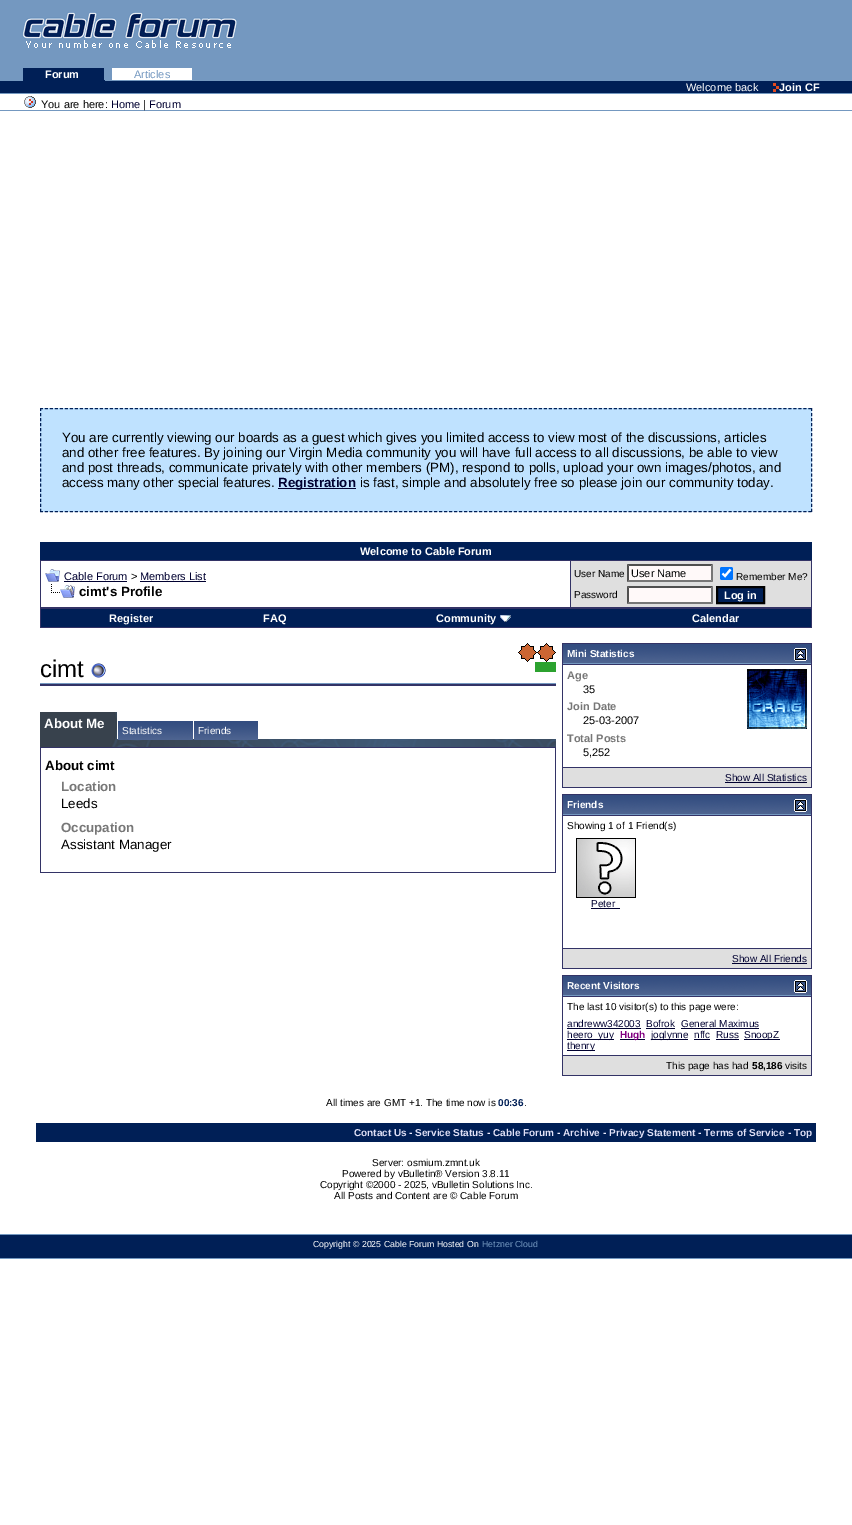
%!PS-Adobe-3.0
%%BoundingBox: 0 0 852 1525
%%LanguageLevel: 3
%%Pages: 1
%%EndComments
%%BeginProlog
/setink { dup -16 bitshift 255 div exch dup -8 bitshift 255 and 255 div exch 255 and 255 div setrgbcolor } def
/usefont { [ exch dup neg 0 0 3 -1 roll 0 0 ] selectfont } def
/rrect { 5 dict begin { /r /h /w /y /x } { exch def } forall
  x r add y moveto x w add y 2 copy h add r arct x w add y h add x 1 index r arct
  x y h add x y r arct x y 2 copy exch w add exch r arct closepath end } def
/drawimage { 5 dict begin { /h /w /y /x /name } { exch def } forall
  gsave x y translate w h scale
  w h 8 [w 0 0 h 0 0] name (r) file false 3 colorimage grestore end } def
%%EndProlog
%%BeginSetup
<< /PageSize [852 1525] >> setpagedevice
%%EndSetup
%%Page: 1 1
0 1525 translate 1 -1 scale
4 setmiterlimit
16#FFFFFF setink
0 0 852 1525 rectfill
16#7498C0 setink
0 0 852 81 rectfill
(img1.raw) 22 12 215 36 drawimage
16#001F56 setink
23 68 81 12 rectfill
/LiberationSans-Bold 11 usefont
16#FFFFFF setink
45 78 moveto (Forum) show
[
    [22 80 83 1 16#001F56]
    [22 80 1 1 16#7498C0]
    [112 68 80 12 16#FFFFFF]
] { aload pop setink rectfill } forall
/LiberationSans-Regular 11 usefont
16#7498C0 setink
134 78 moveto (Articles) show
16#001F56 setink
0 81 852 12 rectfill
16#7498C0 setink
0 93 852 1 rectfill
16#FFFFFF setink
686 91 moveto (Welcome back) show
(img2.raw) 773 83 6 9 drawimage
/LiberationSans-Bold 11 usefont
779 91 moveto (Join CF) show
16#7498C0 setink
0 110 852 1 rectfill
(img3.raw) 24 96 12 12 drawimage
/LiberationSans-Regular 11 usefont
16#000000 setink
41 108 moveto (You are here:) show
16#000030 setink
111 108 moveto (Home) show
16#000000 setink
143 108 moveto (|) show
16#000030 setink
149 108 moveto (Forum) show
16#BFE2FF setink
40 408 772 104 rectfill
16#001F56 setink
[3 1.99] 0 setdash
40 408.5 moveto 812 408.5 lineto stroke
[3 2.05] 0 setdash
811.5 408 moveto 811.5 512 lineto stroke
[3 1.99] 0 setdash
40 511.5 moveto 812 511.5 lineto stroke
[3 2.05] 0 setdash
40.5 408 moveto 40.5 512 lineto stroke
/LiberationSans-Regular 13.33 usefont
16#000000 setink
[
    [(You are currently viewing our boards as a guest which gives you limited access to view most of the discussions, articles) 62 442]
    [(and other free features. By joining our Virgin Media community you will have full access to all discussions, be able to view) 62 457]
    [(and post threads, communicate privately with other members \(PM\), respond to polls, upload your own images/photos, and) 62 472]
    [(access many other special features.) 62 487]
] { aload pop moveto show } forall
16#000030 setink
278 488 78 1 rectfill
/LiberationSans-Bold 13.33 usefont
278 487 moveto (Registration) show
/LiberationSans-Regular 13.33 usefont
16#000000 setink
360 487 moveto (is fast, simple and absolutely free so please join our community today.) show
16#001F56 setink
40 542 772 18 rectfill
/LiberationSans-Bold 11 usefont
16#FFFFFF setink
360 555 moveto (Welcome to Cable Forum) show
16#333366 setink
40 560 772 68 rectfill
16#FFFFFF setink
41 561 529 46 rectfill
(img4.raw) 45 569 15 13 drawimage
/LiberationSans-Regular 11 usefont
16#000030 setink
64 580 moveto (Cable Forum) show
64 581 63 1 rectfill
16#000000 setink
131 580 moveto (>) show
16#000030 setink
140 580 moveto (Members List) show
140 581 66 1 rectfill
(img5.raw) 51 584 24 14 drawimage
/LiberationSans-Bold 13.33 usefont
16#000000 setink
79 596 moveto (cimt's Profile) show
16#DFDFDF setink
571 561 240 46 rectfill
/LiberationSans-Regular 10 usefont
16#000000 setink
574 577 moveto (User Name) show
16#FFF9F9 setink
627 564 86 18 rectfill
16#4F4F4F setink
627 564 moveto 713 564 lineto 711 566 lineto 629 566 lineto closepath fill
16#767676 setink
713 564 moveto 713 582 lineto 711 580 lineto 711 566 lineto closepath fill
713 582 moveto 627 582 lineto 629 580 lineto 711 580 lineto closepath fill
16#4F4F4F setink
627 582 moveto 627 564 lineto 629 566 lineto 629 580 lineto closepath fill
/LiberationSans-Regular 11 usefont
16#000000 setink
631 577 moveto (User Name) show
16#0075FF setink
720 567 13 13 2 rrect fill
16#FFFFFF setink
2.1 setlinewidth
[] 0 setdash
722.5 573.5 moveto 725 576 lineto 730.5 569.5 lineto stroke
/LiberationSans-Regular 10 usefont
16#000000 setink
736 580 moveto (Remember Me?) show
574 598 moveto (Password) show
16#FFF9F9 setink
627 586 86 18 rectfill
16#4F4F4F setink
627 586 moveto 713 586 lineto 711 588 lineto 629 588 lineto closepath fill
16#767676 setink
713 586 moveto 713 604 lineto 711 602 lineto 711 588 lineto closepath fill
713 604 moveto 627 604 lineto 629 602 lineto 711 602 lineto closepath fill
16#4F4F4F setink
627 604 moveto 627 586 lineto 629 588 lineto 629 602 lineto closepath fill
16#001F56 setink
717 587 moveto 764 587 lineto 764 603 lineto 717 603 lineto closepath gsave fill grestore
16#000000 setink
2 setlinewidth
stroke
/LiberationSans-Bold 11 usefont
16#FFFFFF setink
724 599 moveto (Log in) show
16#001F56 setink
41 609 770 18 rectfill
16#FFFFFF setink
[
    [(Register) 109 622]
    [(FAQ) 263 622]
    [(Community) 436 622]
] { aload pop moveto show } forall
(img6.raw) 500 615 11 7 drawimage
692 622 moveto (Calendar) show
16#7498C0 setink
40 683 516 1 rectfill
/LiberationSans-Regular 24 usefont
16#000000 setink
40 677 moveto (cimt) show
(img7.raw) 91 663 15 15 drawimage
(img8.raw) 518 643 19 19 drawimage
(img8.raw) 537 643 19 19 drawimage
16#2CA22F setink
535 662 21 10 rectfill
16#333366 setink
40 684 516 2 rectfill
(img12.raw) 40 739 516 8 drawimage
(img9.raw) 40 712 77 28 drawimage
/LiberationSans-Bold 13.33 usefont
16#FFFFFF setink
44 728 moveto (About Me) show
(img10.raw) 118 721 75 19 drawimage
/LiberationSans-Regular 10 usefont
122 734 moveto (Statistics) show
(img11.raw) 194 721 64 19 drawimage
198 734 moveto (Friends) show
16#333366 setink
40 747 516 126 rectfill
16#FFFFFF setink
41 748 514 124 rectfill
/LiberationSans-Bold 13.33 usefont
16#000000 setink
45 770 moveto (About cimt) show
16#777777 setink
61 791 moveto (Location) show
/LiberationSans-Regular 13.33 usefont
16#000000 setink
61 808 moveto (Leeds) show
/LiberationSans-Bold 13.33 usefont
16#777777 setink
61 832 moveto (Occupation) show
/LiberationSans-Regular 13.33 usefont
16#000000 setink
61 849 moveto (Assistant Manager) show
16#333366 setink
562 643 250 145 rectfill
(img13.raw) 563 644 248 19 drawimage
16#7498C0 setink
563 663 248 1 rectfill
/LiberationSans-Bold 10 usefont
16#FFFFFF setink
567 657 moveto (Mini Statistics) show
(img14.raw) 794 648 13 13 drawimage
563 665 248 102 rectfill
/LiberationSans-Bold 11 usefont
16#777777 setink
567 679 moveto (Age) show
/LiberationSans-Regular 11 usefont
16#000000 setink
583 693 moveto (35) show
/LiberationSans-Bold 11 usefont
16#777777 setink
567 710 moveto (Join Date) show
/LiberationSans-Regular 11 usefont
16#000000 setink
583 724 moveto (25-03-2007) show
/LiberationSans-Bold 11 usefont
16#777777 setink
567 742 moveto (Total Posts) show
/LiberationSans-Regular 11 usefont
16#000000 setink
583 756 moveto (5,252) show
(img15.raw) 747 669 60 60 drawimage
16#DFDFDF setink
563 768 248 19 rectfill
/LiberationSans-Regular 10 usefont
16#000030 setink
725 781 moveto (Show All Statistics) show
725 782 82 1 rectfill
16#333366 setink
562 794 250 175 rectfill
(img13.raw) 563 795 248 19 drawimage
16#7498C0 setink
563 814 248 1 rectfill
/LiberationSans-Bold 10 usefont
16#FFFFFF setink
567 808 moveto (Friends) show
(img14.raw) 794 799 13 13 drawimage
563 816 248 132 rectfill
/LiberationSans-Regular 10 usefont
16#000000 setink
567 829 moveto (Showing 1 of 1 Friend\(s\)) show
(img16.raw) 576 838 60 60 drawimage
16#000030 setink
591 907 moveto (Peter) show
591 908 29 1 rectfill
16#DFDFDF setink
563 949 248 19 rectfill
16#000030 setink
732 962 moveto (Show All Friends) show
732 963 75 1 rectfill
16#333366 setink
562 975 250 101 rectfill
(img13.raw) 563 976 248 19 drawimage
16#7498C0 setink
563 995 248 1 rectfill
/LiberationSans-Bold 10 usefont
16#FFFFFF setink
567 989 moveto (Recent Visitors) show
(img14.raw) 794 980 13 13 drawimage
563 997 248 58 rectfill
/LiberationSans-Regular 10 usefont
16#000000 setink
567 1010 moveto (The last 10 visitor\(s\) to this page were:) show
16#000030 setink
567 1027 moveto (andreww342003) show
567 1028 74 1 rectfill
646 1027 moveto (Bofrok) show
646 1028 29 1 rectfill
681 1027 moveto (General Maximus) show
681 1028 78 1 rectfill
567 1039 47 1 rectfill
567 1038 moveto (heero_yuy) show
620 1039 25 1 rectfill
/LiberationSans-Bold 10 usefont
16#800080 setink
620 1038 moveto (Hugh) show
16#000030 setink
651 1039 37 1 rectfill
/LiberationSans-Regular 10 usefont
651 1038 moveto (joglynne) show
694 1038 moveto (nffc) show
694 1039 16 1 rectfill
716 1038 moveto (Russ) show
716 1039 23 1 rectfill
744 1039 36 1 rectfill
744 1038 moveto (SnoopZ) show
567 1050 28 1 rectfill
567 1049 moveto (thenry) show
16#DFDFDF setink
563 1056 248 19 rectfill
16#000000 setink
666 1069 moveto (This page has had) show
/LiberationSans-Bold 10 usefont
752 1069 moveto (58,186) show
/LiberationSans-Regular 10 usefont
785 1069 moveto (visits) show
326 1106 moveto (All times are GMT +1. The time now is) show
/LiberationSans-Bold 10 usefont
16#001F56 setink
498 1106 moveto (00:36) show
/LiberationSans-Regular 10 usefont
16#000000 setink
524 1106 moveto (.) show
16#001F56 setink
36 1123 780 19 rectfill
/LiberationSans-Bold 10 usefont
16#E0E0F6 setink
354 1136 moveto (Contact Us) show
16#EEEEFF setink
409 1136 moveto (-) show
16#E0E0F6 setink
415 1136 moveto (Service Status) show
16#EEEEFF setink
487 1136 moveto (-) show
16#E0E0F6 setink
493 1136 moveto (Cable Forum) show
16#EEEEFF setink
557 1136 moveto (-) show
16#E0E0F6 setink
563 1136 moveto (Archive) show
16#EEEEFF setink
603 1136 moveto (-) show
16#E0E0F6 setink
609 1136 moveto (Privacy Statement) show
16#EEEEFF setink
698 1136 moveto (-) show
16#E0E0F6 setink
704 1136 moveto (Terms of Service) show
16#EEEEFF setink
788 1136 moveto (-) show
16#E0E0F6 setink
794 1136 moveto (Top) show
/LiberationSans-Regular 10 usefont
16#000000 setink
[
    [(Server: osmium.zmnt.uk) 372 1166]
    [(Powered by vBulletin® Version 3.8.11) 342 1177]
    [(Copyright ©2000 - 2025, vBulletin Solutions Inc.) 320 1188]
    [(All Posts and Content are © Cable Forum) 334 1199]
] { aload pop moveto show } forall
[
    [0 1235 852 23 16#001F56]
    [0 1234 852 1 16#7498C0]
    [0 1258 852 1 16#7498C0]
] { aload pop setink rectfill } forall
/LiberationSans-Regular 8.75 usefont
16#FFFFFF setink
313 1247 moveto (Copyright © 2025 Cable Forum Hosted On) show
16#7498C0 setink
482 1247 moveto (Hetzner Cloud) show
showpage
%%EOF
